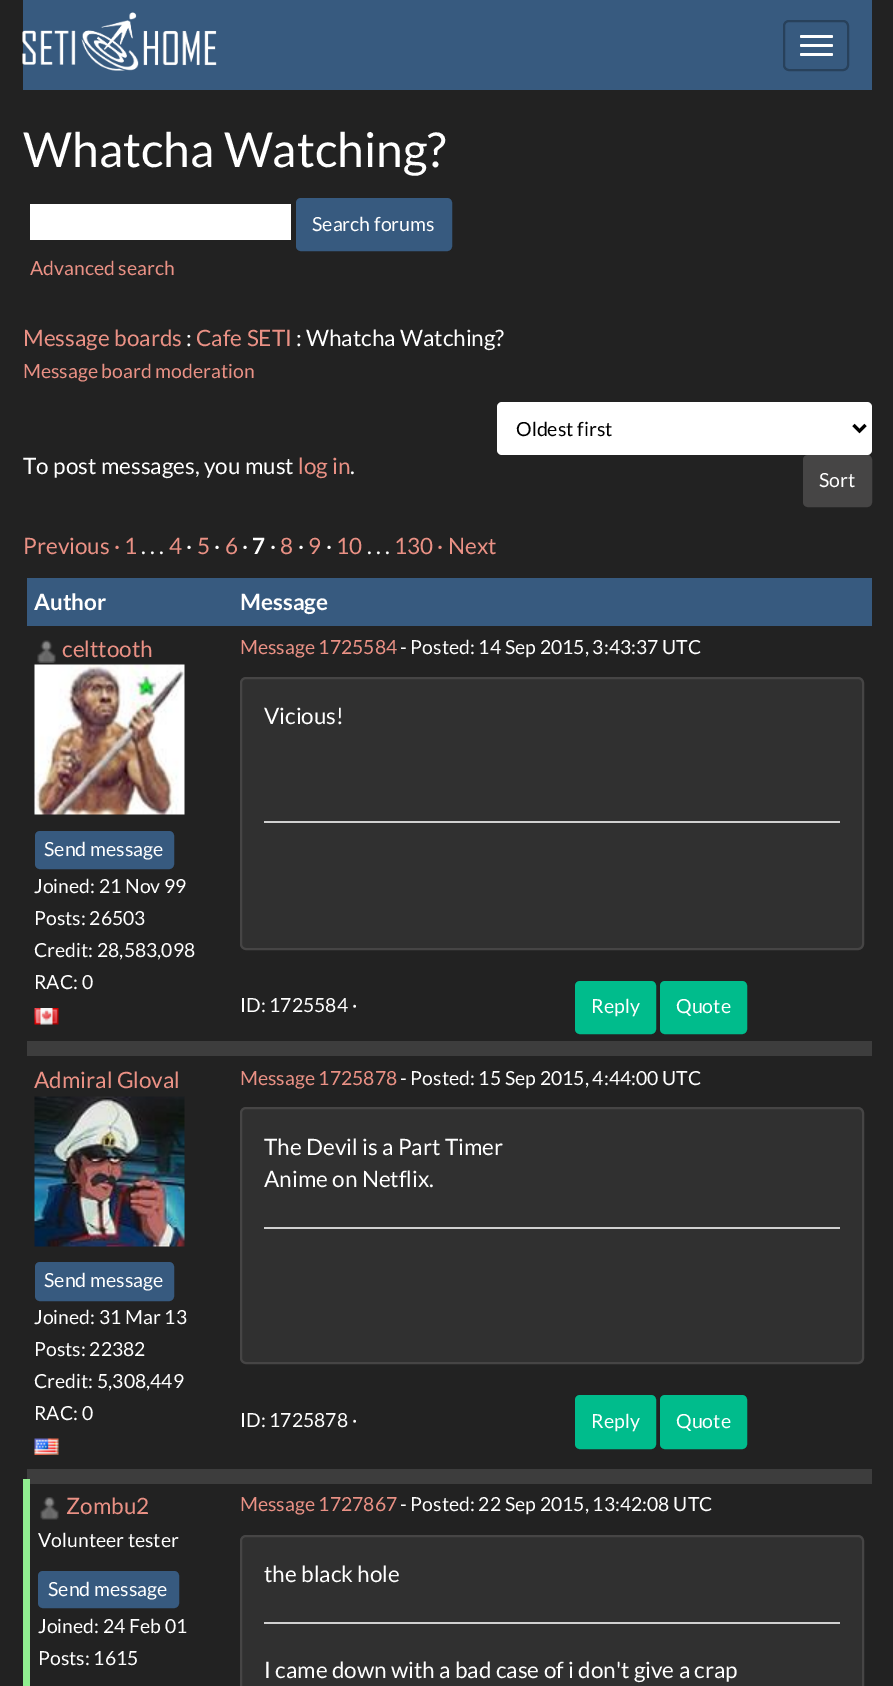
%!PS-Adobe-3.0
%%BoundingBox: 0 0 893 1686
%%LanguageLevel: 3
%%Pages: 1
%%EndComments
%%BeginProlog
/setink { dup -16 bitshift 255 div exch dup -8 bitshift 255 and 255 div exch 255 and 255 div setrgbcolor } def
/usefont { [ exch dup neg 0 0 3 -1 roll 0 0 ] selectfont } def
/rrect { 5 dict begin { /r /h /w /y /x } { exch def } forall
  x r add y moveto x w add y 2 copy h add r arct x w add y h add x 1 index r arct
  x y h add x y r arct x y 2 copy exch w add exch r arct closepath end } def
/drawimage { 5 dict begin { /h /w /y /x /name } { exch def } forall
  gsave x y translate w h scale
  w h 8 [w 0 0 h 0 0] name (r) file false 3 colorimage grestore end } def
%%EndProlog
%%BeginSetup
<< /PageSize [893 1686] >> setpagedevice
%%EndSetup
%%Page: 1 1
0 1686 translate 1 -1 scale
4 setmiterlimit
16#222222 setink
0 0 893 1686 rectfill
16#375A7F setink
23 0 849 90 rectfill
(img1.raw) 22 12 195 59 drawimage
16#28415B setink
2 setlinewidth
784 21 64 49 5 rrect stroke
16#FFFFFF setink
800 35 33 3 1.5 rrect fill
800 44 33 3 1.5 rrect fill
800 53 33 3 1.5 rrect fill
/Lato-Regular 48 usefont
23 167 moveto (Whatcha Watching?) show
30 204 261 36 rectfill
16#375A7F setink
297.5 199.5 153 50 3.5 rrect gsave fill grestore
3 setlinewidth
stroke
/Lato-Regular 19.5 usefont
16#FFFFFF setink
312 231 moveto (Search forums) show
/Lato-Regular 19.4 usefont
16#EA9185 setink
30 275 moveto (Advanced search) show
/Lato-Regular 22.5 usefont
23 346 moveto (Message boards) show
16#FFFFFF setink
186 346 moveto (:) show
16#EA9185 setink
196 346 moveto (Cafe SETI) show
16#FFFFFF setink
296 346 moveto (: Whatcha Watching?) show
/Lato-Regular 19.4 usefont
16#EA9185 setink
23 378 moveto (Message board moderation) show
/Lato-Regular 22.5 usefont
16#FFFFFF setink
23 474 moveto (To post messages, you must) show
16#EA9185 setink
298 474 moveto (log in) show
16#FFFFFF setink
350 474 moveto (.) show
497 402 375 53 5 rrect fill
16#000000 setink
853.5 425 moveto 859.5 431 lineto 865.5 425 lineto stroke
/Lato-Regular 19.5 usefont
516 436 moveto (Oldest first) show
16#464545 setink
804.5 456.5 66 49 3.5 rrect gsave fill grestore
stroke
16#FFFFFF setink
819 487 moveto (Sort) show
/Lato-Regular 22.5 usefont
16#EA9185 setink
23 554 moveto (Previous · 1) show
169 554 moveto (4) show
16#FFFFFF setink
186 554 moveto (·) show
16#EA9185 setink
197 554 moveto (5) show
16#FFFFFF setink
214 554 moveto (·) show
16#EA9185 setink
225 554 moveto (6) show
16#FFFFFF setink
242 554 moveto (·) show
/Lato-Bold 22.5 usefont
252 554 moveto (7) show
/Lato-Regular 22.5 usefont
270 554 moveto (·) show
16#EA9185 setink
280 554 moveto (8) show
16#FFFFFF setink
298 554 moveto (·) show
16#EA9185 setink
308 554 moveto (9) show
16#FFFFFF setink
326 554 moveto (·) show
16#EA9185 setink
336 554 moveto (10) show
394 554 moveto (130 · Next) show
16#FFFFFF setink
141 554 moveto (. . .) show
367 554 moveto (. . .) show
16#375A7F setink
27 578 845 48 rectfill
/Lato-Bold 22.5 usefont
16#FFFFFF setink
34 610 moveto (Author) show
240 610 moveto (Message) show
(img2.raw) 37 640 19 23 drawimage
/Lato-Regular 22.5 usefont
16#EA9185 setink
62 657 moveto (celttooth) show
(img3.raw) 34 664 151 151 drawimage
16#375A7F setink
36.5 832.5 136 35 3.5 rrect gsave fill grestore
stroke
/Lato-Regular 19.5 usefont
16#FFFFFF setink
44 856 moveto (Send message) show
/Lato-Regular 19.4 usefont
[
    [(Joined: 21 Nov 99) 34 893]
    [(Posts: 26503) 34 925]
    [(Credit: 28,583,098) 34 957]
    [(RAC: 0) 34 989]
] { aload pop moveto show } forall
(img4.raw) 34 1008 25 17 drawimage
16#EA9185 setink
240 654 moveto (Message 1725584) show
16#FFFFFF setink
400 654 moveto (- Posted: 14 Sep 2015, 3:43:37 UTC) show
16#303030 setink
241 678 622 271 5 rrect gsave fill grestore
16#464545 setink
2 setlinewidth
stroke
/Lato-Regular 22.5 usefont
16#FFFFFF setink
264 724 moveto (Vicious!) show
16#D0D0D0 setink
264 821 576 2 rectfill
/Lato-Regular 19.4 usefont
16#FFFFFF setink
240 1012 moveto (ID: 1725584 ·) show
16#00BC8C setink
576.5 982.5 78 50 3.5 rrect gsave fill grestore
3 setlinewidth
stroke
/Lato-Regular 19.5 usefont
16#FFFFFF setink
591 1013 moveto (Reply) show
16#00BC8C setink
661.5 982.5 84 50 3.5 rrect gsave fill grestore
stroke
16#FFFFFF setink
676 1013 moveto (Quote) show
16#3D3D3D setink
27 1041 845 15 rectfill
/Lato-Regular 22.5 usefont
16#EA9185 setink
34 1088 moveto (Admiral Gloval) show
(img5.raw) 34 1096 151 151 drawimage
16#375A7F setink
36.5 1263.5 136 36 3.5 rrect gsave fill grestore
stroke
/Lato-Regular 19.5 usefont
16#FFFFFF setink
44 1287 moveto (Send message) show
/Lato-Regular 19.4 usefont
[
    [(Joined: 31 Mar 13) 34 1324]
    [(Posts: 22382) 34 1356]
    [(Credit: 5,308,449) 34 1388]
    [(RAC: 0) 34 1420]
] { aload pop moveto show } forall
(img6.raw) 34 1438 25 17 drawimage
16#EA9185 setink
240 1085 moveto (Message 1725878) show
16#FFFFFF setink
400 1085 moveto (- Posted: 15 Sep 2015, 4:44:00 UTC) show
16#303030 setink
241 1108 622 255 5 rrect gsave fill grestore
16#464545 setink
2 setlinewidth
stroke
/Lato-Regular 22.5 usefont
16#FFFFFF setink
264 1155 moveto (The Devil is a Part Timer) show
264 1187 moveto (Anime on Netflix.) show
16#D0D0D0 setink
264 1227 576 2 rectfill
/Lato-Regular 19.4 usefont
16#FFFFFF setink
240 1427 moveto (ID: 1725878 ·) show
16#00BC8C setink
576.5 1396.5 78 51 3.5 rrect gsave fill grestore
3 setlinewidth
stroke
/Lato-Regular 19.5 usefont
16#FFFFFF setink
591 1428 moveto (Reply) show
16#00BC8C setink
661.5 1396.5 84 51 3.5 rrect gsave fill grestore
stroke
16#FFFFFF setink
676 1428 moveto (Quote) show
16#3D3D3D setink
27 1469 845 15 rectfill
16#90EE90 setink
23 1479 7 207 rectfill
(img7.raw) 40 1497 19 23 drawimage
/Lato-Regular 22.5 usefont
16#EA9185 setink
66 1514 moveto (Zombu2) show
/Lato-Regular 19.4 usefont
16#FFFFFF setink
38 1547 moveto (Volunteer tester) show
16#375A7F setink
39.5 1572.5 138 34 3.5 rrect gsave fill grestore
stroke
/Lato-Regular 19.5 usefont
16#FFFFFF setink
48 1596 moveto (Send message) show
/Lato-Regular 19.4 usefont
38 1633 moveto (Joined: 24 Feb 01) show
38 1665 moveto (Posts: 1615) show
16#EA9185 setink
240 1511 moveto (Message 1727867) show
16#FFFFFF setink
400 1511 moveto (- Posted: 22 Sep 2015, 13:42:08 UTC) show
16#303030 setink
241 1536 622 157 5 rrect gsave fill grestore
16#464545 setink
2 setlinewidth
stroke
/Lato-Regular 22.5 usefont
16#FFFFFF setink
264 1582 moveto (the black hole) show
16#D0D0D0 setink
264 1622 576 2 rectfill
16#FFFFFF setink
264 1678 moveto (I came down with a bad case of i don't give a crap) show
showpage
%%EOF
